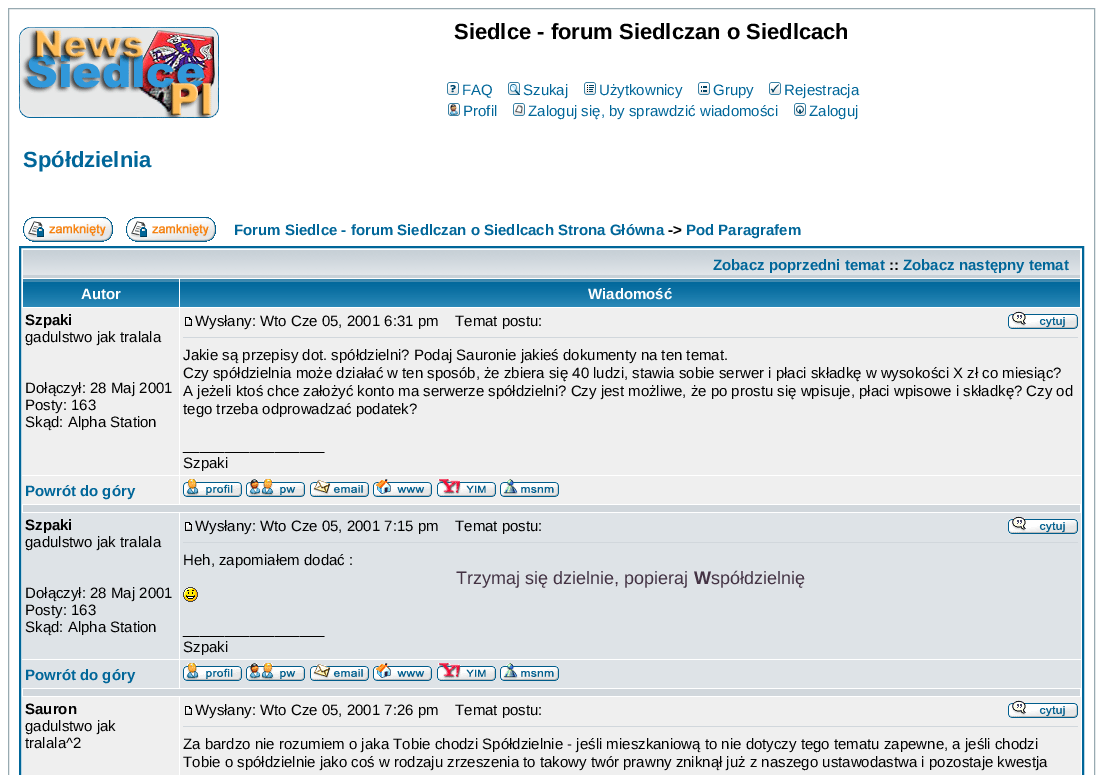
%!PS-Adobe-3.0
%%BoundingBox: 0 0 1103 775
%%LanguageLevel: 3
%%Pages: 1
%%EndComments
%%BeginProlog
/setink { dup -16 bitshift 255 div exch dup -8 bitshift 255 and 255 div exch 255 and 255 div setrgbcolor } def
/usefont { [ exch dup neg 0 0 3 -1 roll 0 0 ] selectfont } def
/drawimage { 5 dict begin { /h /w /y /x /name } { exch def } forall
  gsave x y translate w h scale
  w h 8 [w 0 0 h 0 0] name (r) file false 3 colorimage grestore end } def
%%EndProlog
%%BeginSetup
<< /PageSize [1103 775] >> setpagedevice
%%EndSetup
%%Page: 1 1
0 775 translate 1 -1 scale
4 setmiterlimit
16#FFFFFF setink
0 0 1103 775 rectfill
16#98AAB1 setink
8.5 8.5 1086 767 rectstroke
(img1.raw) 19 27 200 91 drawimage
/LiberationSans-Bold 22 usefont
16#000000 setink
454 39 moveto (Siedlce - forum Siedlczan o Siedlcach) show
(img2.raw) 447 82 12 13 drawimage
/LiberationSans-Regular 15 usefont
16#006699 setink
462 95 moveto (FAQ) show
(img3.raw) 508 82 12 13 drawimage
523 95 moveto (Szukaj) show
(img4.raw) 584 82 12 13 drawimage
599 95 moveto (Użytkownicy) show
(img5.raw) 698 82 12 13 drawimage
713 95 moveto (Grupy) show
(img6.raw) 769 82 12 13 drawimage
784 95 moveto (Rejestracja) show
(img7.raw) 448 103 12 13 drawimage
463 116 moveto (Profil) show
(img8.raw) 513 103 12 13 drawimage
528 116 moveto (Zaloguj się, by sprawdzić wiadomości) show
(img9.raw) 794 103 12 13 drawimage
809 116 moveto (Zaloguj) show
/LiberationSans-Bold 22 usefont
23 167 moveto (Spółdzielnia) show
(img10.raw) 23 217 90 25 drawimage
(img10.raw) 126 217 90 25 drawimage
/LiberationSans-Bold 15 usefont
234 235 moveto (Forum Siedlce - forum Siedlczan o Siedlcach Strona Główna) show
16#000000 setink
668 235 moveto (->) show
16#006699 setink
686 235 moveto (Pod Paragrafem) show
2 setlinewidth
20 247 1063 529 rectstroke
(img11.raw) 23 250 1057 28 drawimage
713 270 moveto (Zobacz poprzedni temat) show
16#000000 setink
889 270 moveto (::) show
16#006699 setink
903 270 moveto (Zobacz następny temat) show
(img12.raw) 23 279 156 28 drawimage
16#FFFFFF setink
81 299 moveto (Autor) show
(img13.raw) 180 279 900 28 drawimage
588 299 moveto (Wiadomość) show
16#EFEFEF setink
22 308 157 167 rectfill
16#000000 setink
25 325 moveto (Szpaki) show
/LiberationSans-Regular 15 usefont
[
    [(gadulstwo jak tralala) 25 342]
    [(Dołączył: 28 Maj 2001) 25 393]
    [(Posty: 163) 25 410]
    [(Skąd: Alpha Station) 25 427]
] { aload pop moveto show } forall
16#EFEFEF setink
180 308 901 167 rectfill
(img14.raw) 185 317 7 9 drawimage
16#000000 setink
195 326 moveto (Wysłany: Wto Cze 05, 2001 6:31 pm) show
455 326 moveto (Temat postu:) show
(img15.raw) 1008 311 70 18 drawimage
16#D1D7DC setink
183 337 895 1 rectfill
16#000000 setink
[
    [(Jakie są przepisy dot. spółdzielni? Podaj Sauronie jakieś dokumenty na ten temat.) 183 360]
    [(Czy spółdzielnia może działać w ten sposób, że zbiera się 40 ludzi, stawia sobie serwer i płaci składkę w wysokości X zł co miesiąc?) 183 378]
    [(A jeżeli ktoś chce założyć konto ma serwerze spółdzielni? Czy jest możliwe, że po prostu się wpisuje, płaci wpisowe i składkę? Czy od) 183 396]
    [(tego trzeba odprowadzać podatek?) 183 414]
    [(_________________) 183 450]
    [(Szpaki) 183 468]
] { aload pop moveto show } forall
16#EFEFEF setink
22 476 157 28 rectfill
/LiberationSans-Bold 15 usefont
16#006699 setink
25 496 moveto (Powrót do góry) show
16#EFEFEF setink
180 476 901 28 rectfill
(img16.raw) 183 479 59 18 drawimage
(img17.raw) 246 479 59 18 drawimage
(img18.raw) 310 479 59 18 drawimage
(img19.raw) 373 479 59 18 drawimage
(img20.raw) 437 479 59 18 drawimage
(img21.raw) 500 479 59 18 drawimage
16#D1D7DC setink
23 505 1057 7 rectfill
16#DEE3E7 setink
22 513 157 146 rectfill
16#000000 setink
25 530 moveto (Szpaki) show
/LiberationSans-Regular 15 usefont
[
    [(gadulstwo jak tralala) 25 547]
    [(Dołączył: 28 Maj 2001) 25 598]
    [(Posty: 163) 25 615]
    [(Skąd: Alpha Station) 25 632]
] { aload pop moveto show } forall
16#DEE3E7 setink
180 513 901 146 rectfill
(img22.raw) 185 522 7 9 drawimage
16#000000 setink
195 531 moveto (Wysłany: Wto Cze 05, 2001 7:15 pm) show
455 531 moveto (Temat postu:) show
(img23.raw) 1008 516 70 18 drawimage
16#D1D7DC setink
183 542 895 1 rectfill
16#000000 setink
183 565 moveto (Heh, zapomiałem dodać :) show
/LiberationSans-Regular 18 usefont
16#443344 setink
456 584 moveto (Trzymaj się dzielnie, popieraj) show
/LiberationSans-Bold 18 usefont
694 584 moveto (W) show
/LiberationSans-Regular 18 usefont
711 584 moveto (spółdzielnię) show
(img24.raw) 183 587 15 15 drawimage
/LiberationSans-Regular 15 usefont
16#000000 setink
183 634 moveto (_________________) show
183 652 moveto (Szpaki) show
16#DEE3E7 setink
22 660 157 28 rectfill
/LiberationSans-Bold 15 usefont
16#006699 setink
25 680 moveto (Powrót do góry) show
16#DEE3E7 setink
180 660 901 28 rectfill
(img25.raw) 183 663 59 18 drawimage
(img26.raw) 246 663 59 18 drawimage
(img27.raw) 310 663 59 18 drawimage
(img28.raw) 373 663 59 18 drawimage
(img29.raw) 437 663 59 18 drawimage
(img30.raw) 500 663 59 18 drawimage
16#D1D7DC setink
23 689 1057 7 rectfill
16#EFEFEF setink
22 697 157 78 rectfill
16#000000 setink
25 714 moveto (Sauron) show
/LiberationSans-Regular 15 usefont
25 731 moveto (gadulstwo jak) show
25 748 moveto (tralala^2) show
16#EFEFEF setink
180 697 901 78 rectfill
(img14.raw) 185 706 7 9 drawimage
16#000000 setink
195 715 moveto (Wysłany: Wto Cze 05, 2001 7:26 pm) show
455 715 moveto (Temat postu:) show
(img15.raw) 1008 700 70 18 drawimage
16#D1D7DC setink
183 726 895 1 rectfill
16#000000 setink
183 749 moveto (Za bardzo nie rozumiem o jaka Tobie chodzi Spółdzielnie - jeśli mieszkaniową to nie dotyczy tego tematu zapewne, a jeśli chodzi) show
183 767 moveto (Tobie o spółdzielnie jako coś w rodzaju zrzeszenia to takowy twór prawny zniknął już z naszego ustawodastwa i pozostaje kwestja) show
showpage
%%EOF
